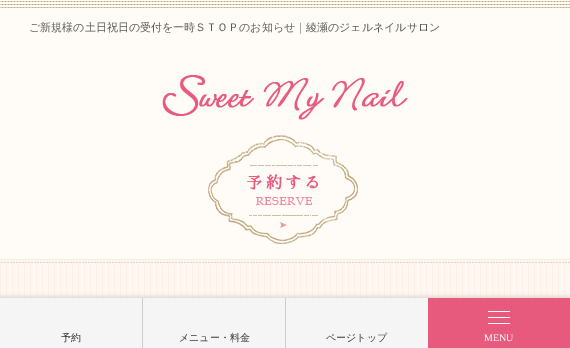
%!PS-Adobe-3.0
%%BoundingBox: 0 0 570 348
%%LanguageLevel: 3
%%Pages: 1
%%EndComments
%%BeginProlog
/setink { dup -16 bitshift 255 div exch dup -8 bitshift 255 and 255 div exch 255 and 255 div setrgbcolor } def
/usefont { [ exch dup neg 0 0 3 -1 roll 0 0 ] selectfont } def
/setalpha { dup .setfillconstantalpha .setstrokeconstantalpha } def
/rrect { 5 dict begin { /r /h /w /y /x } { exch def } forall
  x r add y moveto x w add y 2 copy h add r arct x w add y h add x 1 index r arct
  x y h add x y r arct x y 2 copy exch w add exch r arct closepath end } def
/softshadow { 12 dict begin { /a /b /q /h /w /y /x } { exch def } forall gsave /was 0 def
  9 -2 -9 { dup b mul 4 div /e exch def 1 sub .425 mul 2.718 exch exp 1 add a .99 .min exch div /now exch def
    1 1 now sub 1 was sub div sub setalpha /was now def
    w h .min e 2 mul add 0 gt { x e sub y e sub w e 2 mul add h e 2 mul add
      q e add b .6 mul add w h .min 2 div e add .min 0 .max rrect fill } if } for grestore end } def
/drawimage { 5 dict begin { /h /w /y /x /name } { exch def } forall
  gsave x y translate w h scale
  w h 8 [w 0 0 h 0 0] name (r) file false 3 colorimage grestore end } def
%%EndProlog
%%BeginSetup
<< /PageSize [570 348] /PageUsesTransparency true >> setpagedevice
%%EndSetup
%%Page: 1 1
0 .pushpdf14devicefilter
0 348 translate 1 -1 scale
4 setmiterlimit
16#FFFCF7 setink
0 0 570 348 rectfill
(img1.raw) 0 1 570 7 drawimage
/WenQuanYiZenHei-Medium 11 usefont
16#5A5A5A setink
29 31 moveto (ご新規様の土日祝日の受付を一時ＳＴＯＰのお知らせ｜綾瀬のジェルネイルサロン) show
(img2.raw) 162 75 246 45 drawimage
(img3.raw) 208 135 150 109 drawimage
(img4.raw) 0 259 570 39 drawimage
16#000000 setink
0 297 570 50 0 2.5 0.15 softshadow
16#F5F5F5 setink
0 298 428 50 rectfill
/WenQuanYiZenHei-Medium 10 usefont
16#333333 setink
61 341 moveto (予約) show
16#CCCCCC setink
142 298 1 50 rectfill
16#333333 setink
179 341 moveto (メニュー・料金) show
16#CCCCCC setink
285 298 1 50 rectfill
16#333333 setink
326 341 moveto (ページトップ) show
[
    [428 298 142 50 16#E75A7D]
    [488 311 22 1 16#FFFFFF]
    [488 317 22 1 16#FFFFFF]
    [488 323 22 1 16#FFFFFF]
] { aload pop setink rectfill } forall
/LiberationSerif-Regular 10 usefont
484 341 moveto (MENU) show
.poppdf14devicefilter showpage
%%EOF
